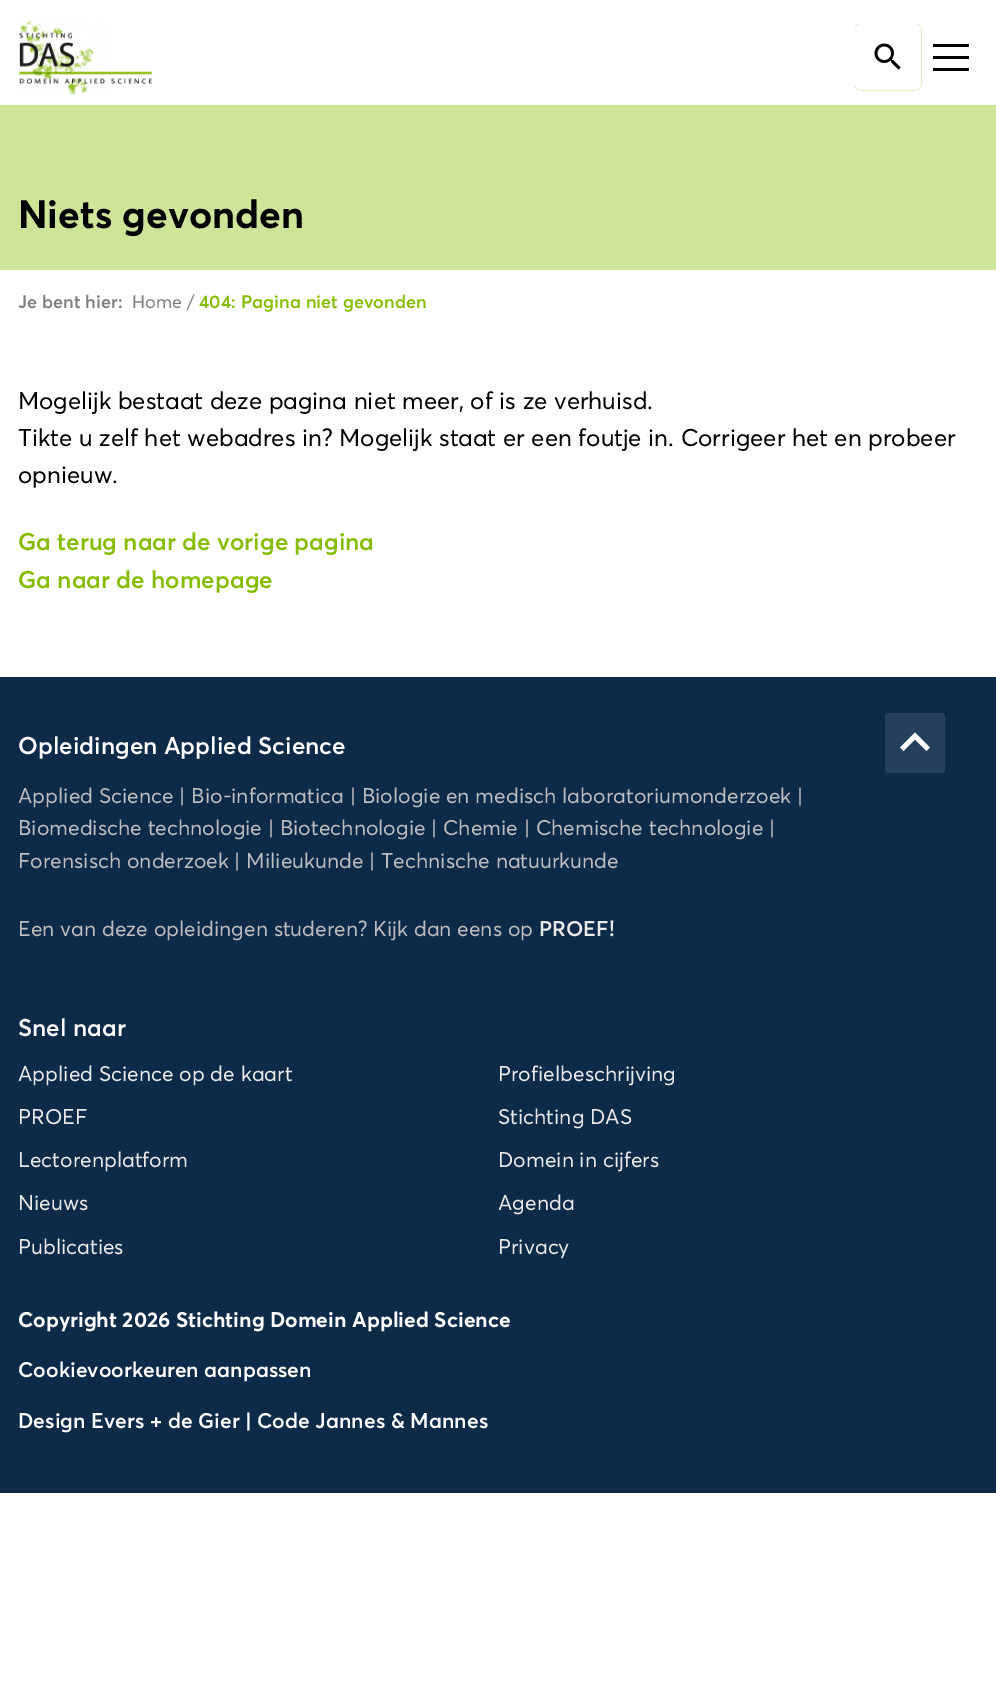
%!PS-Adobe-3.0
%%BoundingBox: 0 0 996 1695
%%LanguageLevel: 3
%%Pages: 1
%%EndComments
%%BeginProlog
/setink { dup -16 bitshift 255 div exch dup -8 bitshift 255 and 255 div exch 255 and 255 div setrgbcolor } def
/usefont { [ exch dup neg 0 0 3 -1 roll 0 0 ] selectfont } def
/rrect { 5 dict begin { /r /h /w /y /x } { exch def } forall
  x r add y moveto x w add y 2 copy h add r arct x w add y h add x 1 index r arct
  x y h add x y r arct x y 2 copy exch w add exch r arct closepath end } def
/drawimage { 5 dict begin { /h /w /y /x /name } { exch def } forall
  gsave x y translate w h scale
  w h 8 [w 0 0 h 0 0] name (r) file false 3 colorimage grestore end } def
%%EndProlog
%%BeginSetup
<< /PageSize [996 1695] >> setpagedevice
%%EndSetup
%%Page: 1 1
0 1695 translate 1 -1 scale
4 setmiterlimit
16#FFFFFF setink
0 0 996 1695 rectfill
(img1.raw) 19 20 133 75 drawimage
16#84BD00 setink
5 setlinewidth
857.5 26.5 61 61 2.5 rrect stroke
16#FFFFFF setink
855 24 66 66 5 rrect fill
(img2.raw) 874 43 27 27 drawimage
[
    [933 56 36 3 16#000000]
    [933 44 36 3 16#000000]
    [933 68 36 3 16#000000]
    [0 105 996 165 16#CEE599]
] { aload pop setink rectfill } forall
/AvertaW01-Bold 39 usefont
16#000000 setink
18 228 moveto (Niets gevonden) show
/AvertaW01-SemiBold 18 usefont
16#7E7F7A setink
18 308 moveto (Je bent hier:) show
/AvertaW01-Regular 18 usefont
132 308 moveto (Home /) show
/AvertaW01-SemiBold 18 usefont
16#84BD00 setink
199 308 moveto (404: Pagina niet gevonden) show
/AvertaW01-Regular 24 usefont
16#000000 setink
[
    [(Mogelijk bestaat deze pagina niet meer, of is ze verhuisd.) 18 409]
    [(Tikte u zelf het webadres in? Mogelijk staat er een foutje in. Corrigeer het en probeer) 18 446]
    [(opnieuw.) 18 483]
] { aload pop moveto show } forall
/AvertaW01-SemiBold 24 usefont
16#84BD00 setink
18 550 moveto (Ga terug naar de vorige pagina) show
18 588 moveto (Ga naar de homepage) show
16#0E2A49 setink
0 677 996 816 rectfill
16#FFFFFF setink
18 754 moveto (Opleidingen Applied Science) show
/AvertaW01-Regular 21 usefont
16#BDBDBD setink
[
    [(Applied Science | Bio-informatica | Biologie en medisch laboratoriumonderzoek |) 18 803]
    [(Biomedische technologie | Biotechnologie | Chemie | Chemische technologie |) 18 835]
    [(Forensisch onderzoek | Milieukunde | Technische natuurkunde) 18 868]
    [(Een van deze opleidingen studeren? Kijk dan eens op) 18 936]
] { aload pop moveto show } forall
/AvertaW01-SemiBold 21 usefont
16#EAEBE9 setink
539 936 moveto (PROEF!) show
16#263F5B setink
885 713 60 60 3 rrect fill
16#FFFFFF setink
903.5 751 moveto 900 747.5 lineto 915 732.5 lineto 930 747.5 lineto 926.5 751 lineto 915 739.5 lineto closepath fill
/AvertaW01-SemiBold 24 usefont
18 1036 moveto (Snel naar) show
/AvertaW01-Regular 21 usefont
16#EAEBE9 setink
[
    [(Applied Science op de kaart) 18 1081]
    [(Profielbeschrijving) 498 1081]
    [(PROEF) 18 1124]
    [(Stichting DAS) 498 1124]
    [(Lectorenplatform) 18 1167]
    [(Domein in cijfers) 498 1167]
    [(Nieuws) 18 1210]
    [(Agenda) 498 1210]
    [(Publicaties) 18 1254]
    [(Privacy) 498 1254]
] { aload pop moveto show } forall
/AvertaW01-Bold 21 usefont
16#FFFFFF setink
18 1327 moveto (Copyright 2026 Stichting Domein Applied Science) show
/AvertaW01-SemiBold 21 usefont
18 1377 moveto (Cookievoorkeuren aanpassen) show
18 1428 moveto (Design Evers + de Gier) show
/AvertaW01-Bold 21 usefont
245 1428 moveto (|) show
/AvertaW01-SemiBold 21 usefont
257 1428 moveto (Code Jannes & Mannes) show
showpage
%%EOF
